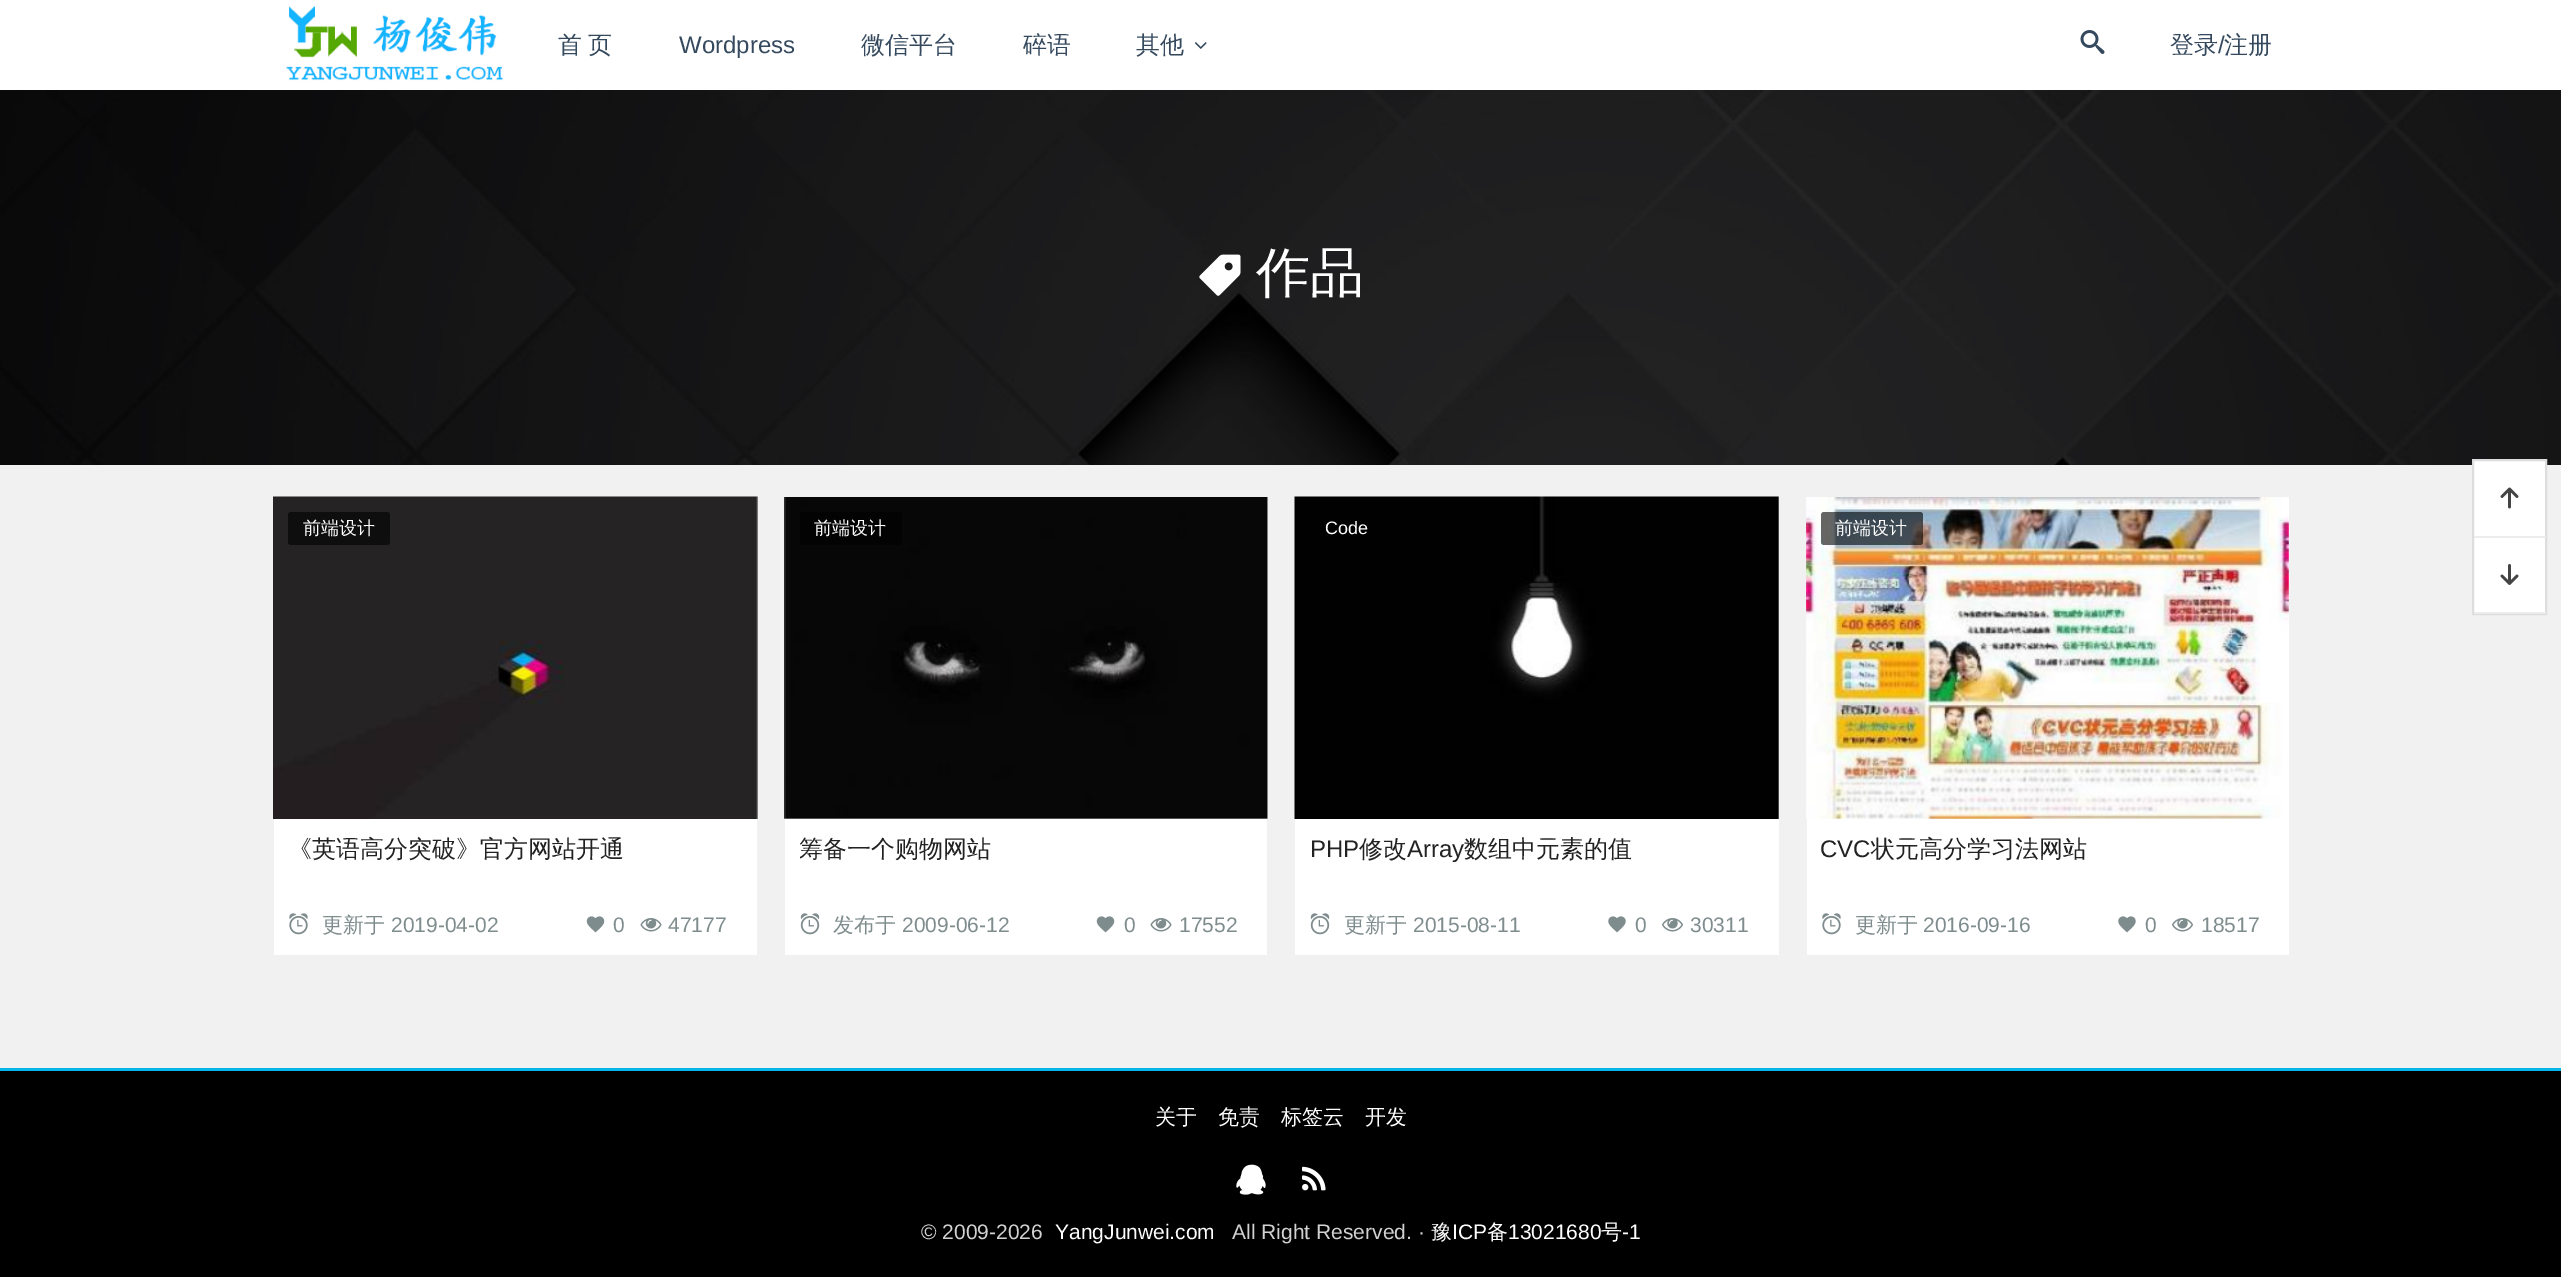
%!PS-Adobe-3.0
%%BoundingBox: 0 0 2561 1277
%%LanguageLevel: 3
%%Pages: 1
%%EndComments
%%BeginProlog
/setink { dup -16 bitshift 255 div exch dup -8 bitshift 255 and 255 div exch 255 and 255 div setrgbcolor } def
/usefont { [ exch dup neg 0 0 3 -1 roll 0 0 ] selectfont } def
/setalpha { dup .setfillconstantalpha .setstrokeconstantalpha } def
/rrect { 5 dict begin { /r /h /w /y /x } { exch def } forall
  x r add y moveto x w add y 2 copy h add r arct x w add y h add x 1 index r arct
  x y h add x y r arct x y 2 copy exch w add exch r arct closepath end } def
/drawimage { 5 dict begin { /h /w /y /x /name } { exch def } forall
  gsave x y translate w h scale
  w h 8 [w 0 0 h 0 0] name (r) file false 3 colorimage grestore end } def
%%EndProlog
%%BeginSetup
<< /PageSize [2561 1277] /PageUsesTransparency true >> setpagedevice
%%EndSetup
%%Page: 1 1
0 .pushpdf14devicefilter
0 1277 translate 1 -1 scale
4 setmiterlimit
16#F1F1F1 setink
0 0 2561 1277 rectfill
16#FFFFFF setink
0 0 2561 90 rectfill
(img1.raw) 286 6 217 75 drawimage
/WenQuanYiZenHei-Medium 24 usefont
16#34495E setink
558 53 moveto -1 0 32 (首 页) widthshow
/LiberationSans-Regular 24 usefont
679 53 moveto (Wordpress) show
/WenQuanYiZenHei-Medium 24 usefont
[
    [(微信平台) 861 53]
    [(碎语) 1023 53]
    [(其他) 1136 53]
] { aload pop moveto show } forall
(img2.raw) 1195 42 12 7 drawimage
(img3.raw) 2080 30 25 24 drawimage
2170 53 moveto (登录) show
/LiberationSans-Regular 24 usefont
2218 53 moveto (/) show
/WenQuanYiZenHei-Medium 24 usefont
2224 53 moveto (注册) show
(img4.raw) 0 90 2561 375 drawimage
(img5.raw) 1199 254 42 42 drawimage
/WenQuanYiZenHei-Medium 54 usefont
16#FFFFFF setink
1256 291 moveto (作品) show
274 497 483 458 rectfill
(img6.raw) 273 496 485 323 drawimage
16#0F0E0E setink
288 512 102 33 3 rrect fill
/WenQuanYiZenHei-Medium 18 usefont
16#FFFFFF setink
303 534 moveto (前端设计) show
/WenQuanYiZenHei-Medium 24 usefont
16#222222 setink
288 857 moveto (《英语高分突破》官方网站开通) show
(img7.raw) 289 913 19 22 drawimage
/WenQuanYiZenHei-Medium 21 usefont
16#7F8C8D setink
322 932 moveto (更新于) show
/LiberationSans-Regular 21 usefont
391 932 moveto (2019-04-02) show
(img8.raw) 586 916 19 17 drawimage
613 932 moveto (0) show
(img9.raw) 640 918 22 14 drawimage
668 932 moveto (47177) show
16#FFFFFF setink
785 497 482 458 rectfill
(img10.raw) 784 497 484 322 drawimage
16#030303 setink
800 512 102 33 3 rrect fill
/WenQuanYiZenHei-Medium 18 usefont
16#FFFFFF setink
814 534 moveto (前端设计) show
gsave
800 834 453 60 rectclip
/WenQuanYiZenHei-Medium 24 usefont
16#222222 setink
799 857 moveto (筹备一个购物网站) show
grestore
(img11.raw) 800 913 20 22 drawimage
/WenQuanYiZenHei-Medium 21 usefont
16#7F8C8D setink
833 932 moveto (发布于) show
/LiberationSans-Regular 21 usefont
902 932 moveto (2009-06-12) show
(img8.raw) 1096 916 19 17 drawimage
1124 932 moveto (0) show
(img9.raw) 1150 918 22 14 drawimage
1179 932 moveto (17552) show
16#FFFFFF setink
1295 497 484 458 rectfill
(img12.raw) 1294 496 485 323 drawimage
/LiberationSans-Regular 18 usefont
1325 534 moveto (Code) show
/LiberationSans-Regular 24 usefont
16#222222 setink
1310 857 moveto (PHP) show
/WenQuanYiZenHei-Medium 24 usefont
1359 857 moveto (修改) show
/LiberationSans-Regular 24 usefont
1407 857 moveto (Array) show
/WenQuanYiZenHei-Medium 24 usefont
1464 857 moveto (数组中元素的值) show
(img11.raw) 1310 913 20 22 drawimage
/WenQuanYiZenHei-Medium 21 usefont
16#7F8C8D setink
1344 932 moveto (更新于) show
/LiberationSans-Regular 21 usefont
1413 932 moveto (2015-08-11) show
(img13.raw) 1608 916 18 17 drawimage
1635 932 moveto (0) show
(img14.raw) 1662 918 21 14 drawimage
1690 932 moveto (30311) show
16#FFFFFF setink
1807 497 482 458 rectfill
(img15.raw) 1806 497 483 322 drawimage
0.6 setalpha
16#000000 setink
1821 512 102 33 3 rrect fill
/WenQuanYiZenHei-Medium 18 usefont
1 setalpha
16#FFFFFF setink
1835 534 moveto (前端设计) show
/LiberationSans-Regular 24 usefont
16#222222 setink
1820 857 moveto (CVC) show
/WenQuanYiZenHei-Medium 24 usefont
1871 857 moveto (状元高分学习法网站) show
(img7.raw) 1822 913 19 22 drawimage
/WenQuanYiZenHei-Medium 21 usefont
16#7F8C8D setink
1855 932 moveto (更新于) show
/LiberationSans-Regular 21 usefont
1923 932 moveto (2016-09-16) show
(img13.raw) 2118 916 18 17 drawimage
2145 932 moveto (0) show
(img14.raw) 2172 918 21 14 drawimage
2201 932 moveto (18517) show
16#FFFFFF setink
2474 461 71 151 rectfill
16#DDDDDD setink
2 setlinewidth
2473 460 73 154 rectstroke
16#ECECEC setink
2474 536 72 2 rectfill
(img16.raw) 2500 487 19 22 drawimage
2474 612 72 2 rectfill
(img17.raw) 2500 564 19 21 drawimage
16#07B6E8 setink
0 1068 2561 3 rectfill
16#000000 setink
0 1071 2561 206 rectfill
/WenQuanYiZenHei-Medium 21 usefont
16#FFFFFF setink
[
    [(关于) 1155 1124]
    [(免责) 1218 1124]
    [(标签云) 1281 1124]
    [(开发) 1365 1124]
] { aload pop moveto show } forall
(img18.raw) 1236 1164 30 31 drawimage
(img19.raw) 1302 1166 24 25 drawimage
/LiberationSans-Regular 21 usefont
16#D2D2D2 setink
921 1239 moveto (© 2009-2026) show
16#FFFFFF setink
1055 1239 moveto (YangJunwei.com) show
16#D2D2D2 setink
1232 1239 moveto (All Right Reserved. ·) show
/WenQuanYiZenHei-Medium 21 usefont
16#FFFFFF setink
1431 1239 moveto (豫) show
/LiberationSans-Regular 21 usefont
1452 1239 moveto (ICP) show
/WenQuanYiZenHei-Medium 21 usefont
1487 1239 moveto (备) show
/LiberationSans-Regular 21 usefont
1508 1239 moveto (13021680) show
/WenQuanYiZenHei-Medium 21 usefont
1601 1239 moveto (号) show
/LiberationSans-Regular 21 usefont
1622 1239 moveto (-1) show
.poppdf14devicefilter showpage
%%EOF
